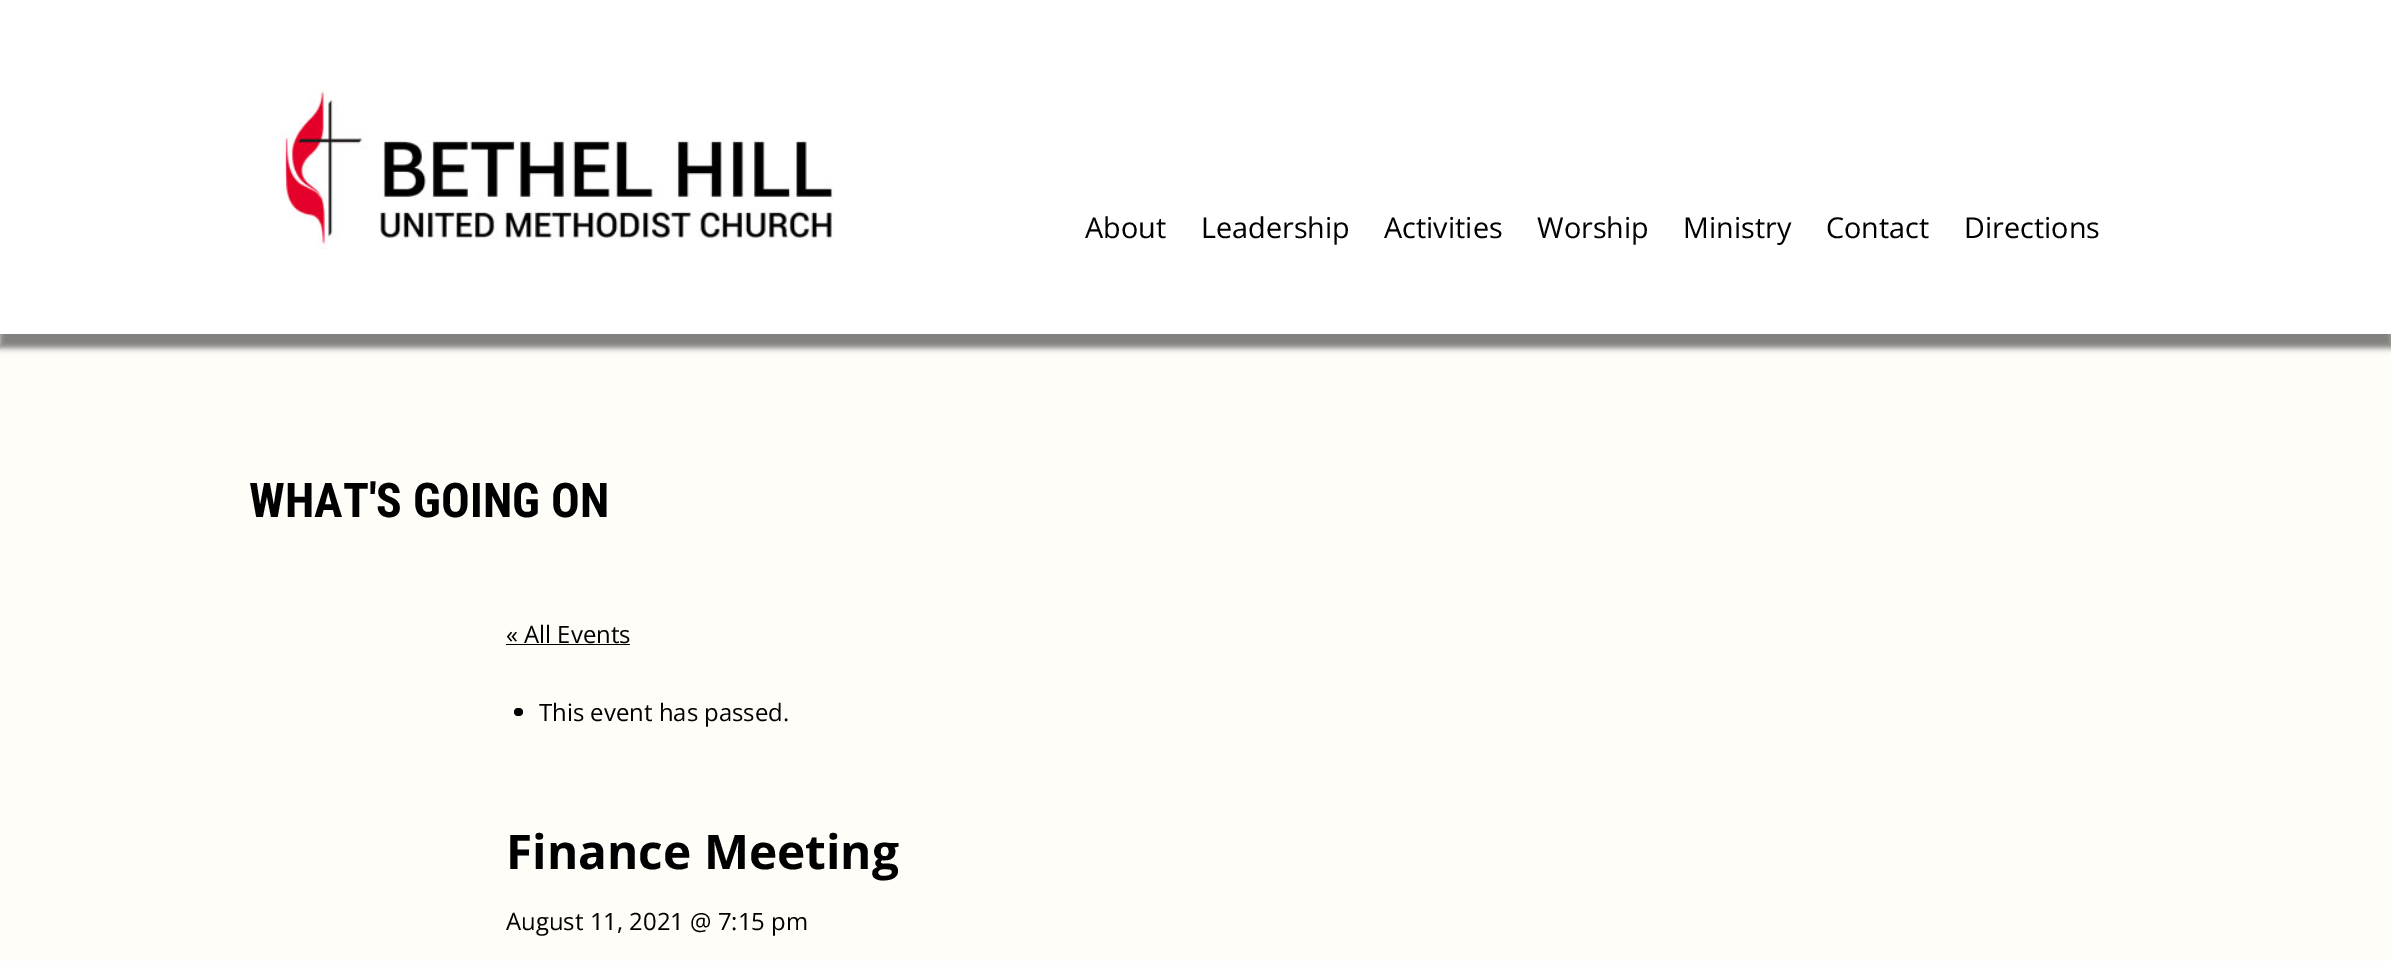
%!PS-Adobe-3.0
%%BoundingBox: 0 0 2391 961
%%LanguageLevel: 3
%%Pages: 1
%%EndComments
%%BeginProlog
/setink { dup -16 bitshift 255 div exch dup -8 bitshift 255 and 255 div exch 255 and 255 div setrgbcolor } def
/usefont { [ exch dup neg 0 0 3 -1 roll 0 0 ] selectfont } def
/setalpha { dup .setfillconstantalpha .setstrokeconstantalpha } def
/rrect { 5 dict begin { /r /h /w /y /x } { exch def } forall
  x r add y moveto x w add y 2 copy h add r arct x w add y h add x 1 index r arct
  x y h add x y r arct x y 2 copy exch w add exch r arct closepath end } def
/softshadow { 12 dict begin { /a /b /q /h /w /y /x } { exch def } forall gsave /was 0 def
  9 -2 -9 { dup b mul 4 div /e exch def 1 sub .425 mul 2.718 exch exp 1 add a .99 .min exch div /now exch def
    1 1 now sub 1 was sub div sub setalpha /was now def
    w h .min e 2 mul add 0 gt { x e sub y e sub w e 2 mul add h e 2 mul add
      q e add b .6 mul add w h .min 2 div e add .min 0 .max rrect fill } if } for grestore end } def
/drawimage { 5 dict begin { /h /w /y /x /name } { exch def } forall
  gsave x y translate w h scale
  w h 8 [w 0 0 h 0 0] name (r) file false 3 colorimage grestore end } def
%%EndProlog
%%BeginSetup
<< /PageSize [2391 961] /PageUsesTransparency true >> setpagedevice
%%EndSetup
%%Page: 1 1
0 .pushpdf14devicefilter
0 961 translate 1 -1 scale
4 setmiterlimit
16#FFFDF8 setink
0 0 2391 961 rectfill
16#000000 setink
-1 11 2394 337 0 3 0.5 softshadow
16#FFFFFF setink
0 0 2391 334 rectfill
(img1.raw) 279 89 555 160 drawimage
/OpenSans-Regular 28.75 usefont
16#000000 setink
[
    [(About) 1085 238]
    [(Leadership) 1201 238]
    [(Activities) 1384 238]
    [(Worship) 1537 238]
    [(Ministry) 1683 238]
    [(Contact) 1826 238]
    [(Directions) 1964 238]
] { aload pop moveto show } forall
/RobotoCondensed-Bold 47.75 usefont
249 517 moveto (WHAT'S GOING ON) show
/OpenSans-Regular 23.9 usefont
506 643 moveto (« All Events) show
506 644 124 1 rectfill
514 708 9 8 4 rrect fill
539 721 moveto (This event has passed.) show
/OpenSans-Bold 47.75 usefont
506 869 moveto (Finance Meeting) show
/OpenSans-Regular 23.9 usefont
506 930 moveto (August 11, 2021 @ 7:15 pm) show
.poppdf14devicefilter showpage
%%EOF
